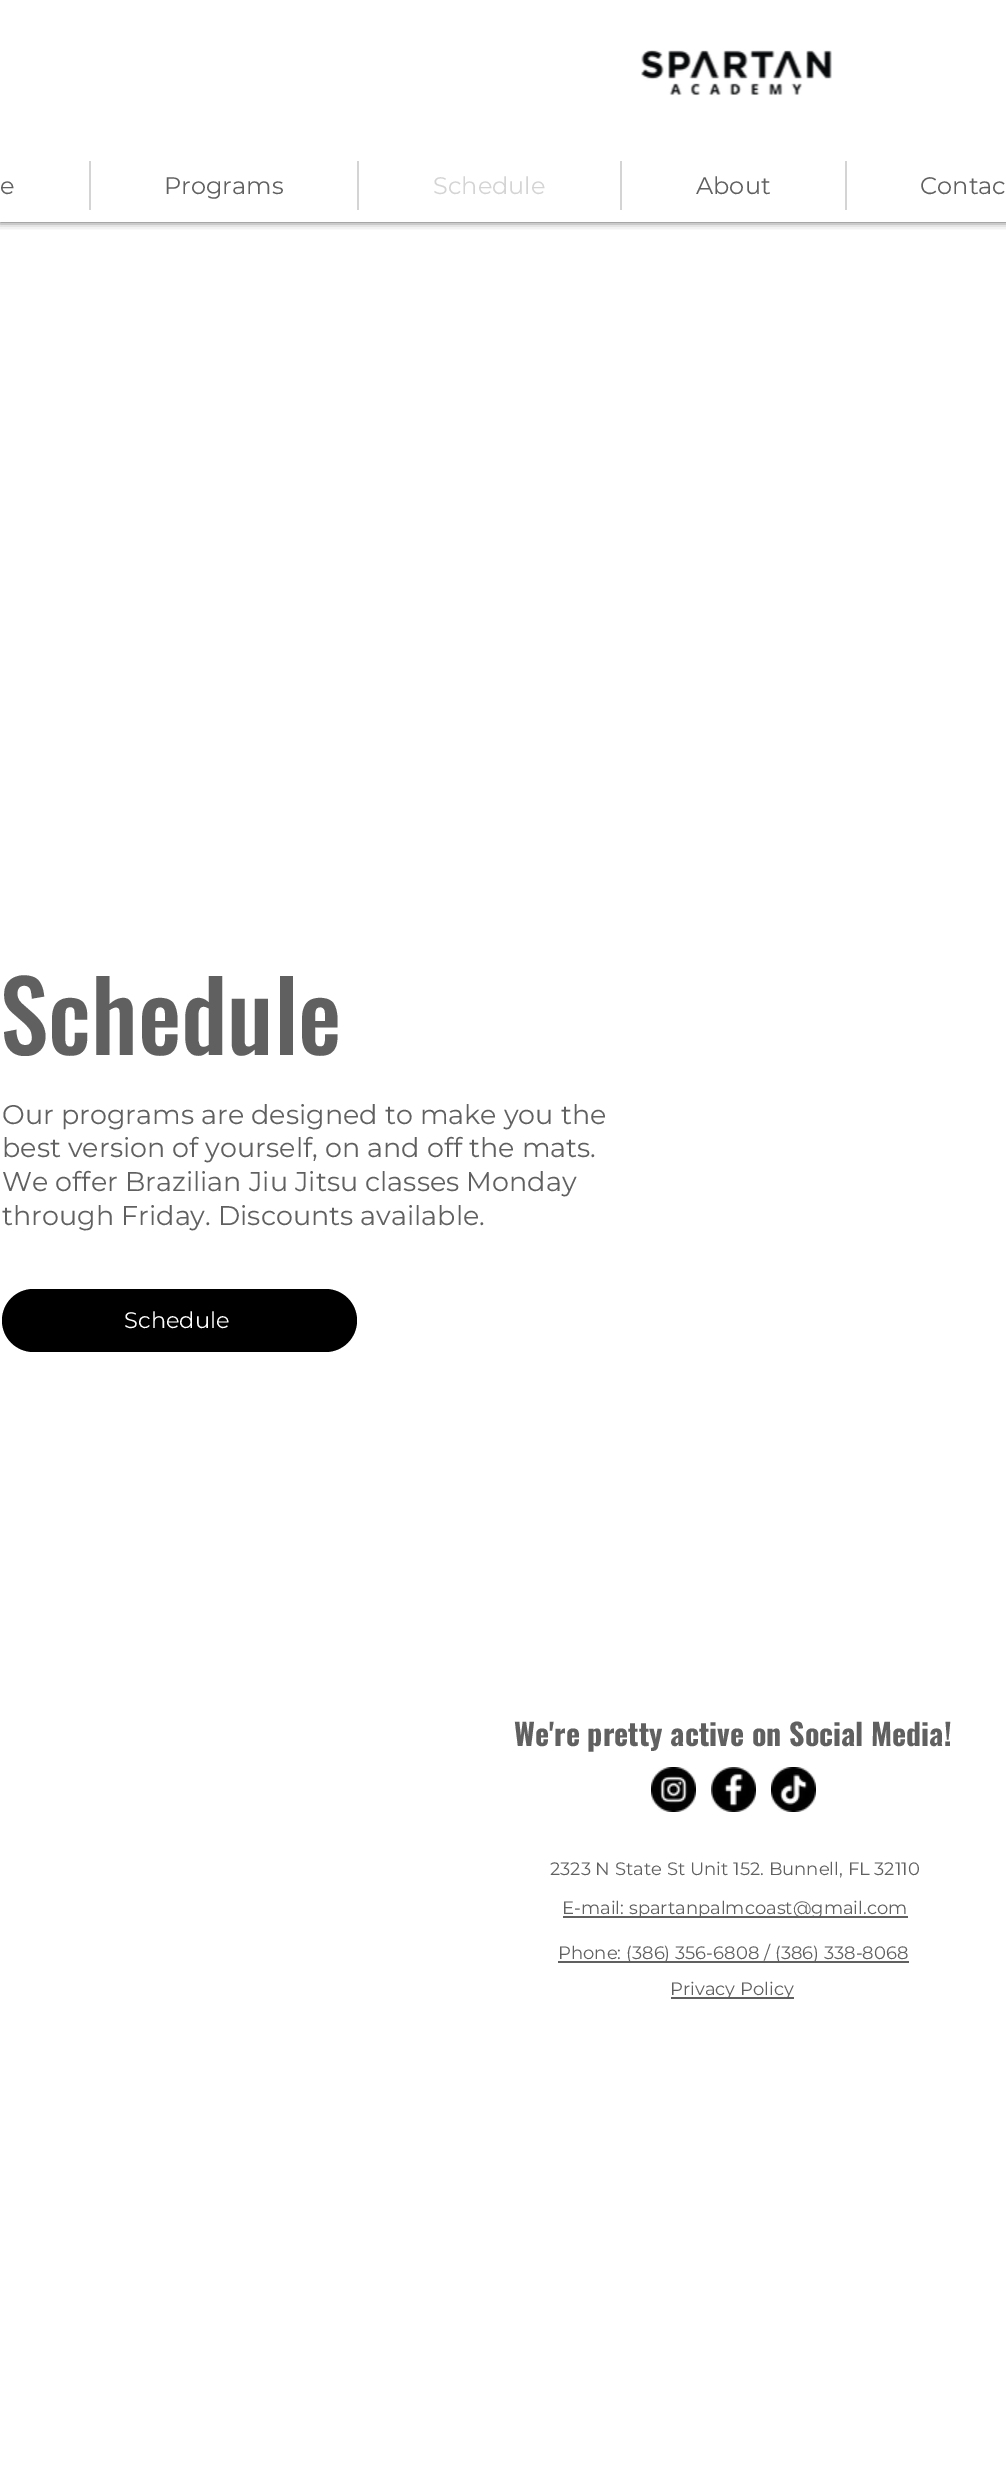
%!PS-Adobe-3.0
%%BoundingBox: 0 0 1006 2484
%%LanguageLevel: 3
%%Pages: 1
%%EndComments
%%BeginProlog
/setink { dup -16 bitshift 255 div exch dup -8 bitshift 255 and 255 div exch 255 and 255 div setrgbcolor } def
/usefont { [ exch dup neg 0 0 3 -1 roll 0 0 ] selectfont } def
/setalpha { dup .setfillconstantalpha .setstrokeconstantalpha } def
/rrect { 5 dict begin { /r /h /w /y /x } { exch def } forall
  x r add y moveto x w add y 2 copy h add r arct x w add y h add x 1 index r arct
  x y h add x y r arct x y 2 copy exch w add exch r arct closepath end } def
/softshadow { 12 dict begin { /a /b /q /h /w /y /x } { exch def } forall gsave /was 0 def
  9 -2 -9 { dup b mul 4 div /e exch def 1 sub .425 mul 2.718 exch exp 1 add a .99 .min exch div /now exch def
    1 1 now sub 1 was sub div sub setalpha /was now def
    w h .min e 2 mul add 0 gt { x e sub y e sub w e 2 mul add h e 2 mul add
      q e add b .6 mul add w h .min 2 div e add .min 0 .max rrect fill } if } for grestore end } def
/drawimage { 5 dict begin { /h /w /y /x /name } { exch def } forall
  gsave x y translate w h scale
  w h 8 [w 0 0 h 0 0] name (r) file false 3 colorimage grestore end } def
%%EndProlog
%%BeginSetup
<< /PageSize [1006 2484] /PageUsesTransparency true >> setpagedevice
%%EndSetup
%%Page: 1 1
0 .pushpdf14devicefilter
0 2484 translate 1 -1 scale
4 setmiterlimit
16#FFFFFF setink
0 0 1006 2484 rectfill
gsave
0 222 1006 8 rectclip
16#000000 setink
0 0 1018 222 0 4 0.7 softshadow
grestore
(img1.raw) 641 50 191 46 drawimage
/Montserrat-Regular 24 usefont
16#606060 setink
0 194 moveto (e) show
16#D4D4D4 setink
89 161 2 49 rectfill
16#606060 setink
164 194 moveto (Programs) show
16#D4D4D4 setink
357 161 2 49 rectfill
433 194 moveto (Schedule) show
620 161 2 49 rectfill
16#606060 setink
696 194 moveto (About) show
16#D4D4D4 setink
845 161 2 49 rectfill
16#606060 setink
920 194 moveto (Contac) show
/Oswald-Medium 97.5 usefont
0 1055 moveto (Schedule) show
/Montserrat-Regular 27 usefont
[
    [(Our programs are designed to make you the) 2 1124]
    [(best version of yourself, on and off the mats.) 2 1157]
    [(We offer Brazilian Jiu Jitsu classes Monday) 2 1191]
    [(through Friday. Discounts available.) 2 1225]
] { aload pop moveto show } forall
16#000000 setink
2 1289 355 63 31.5 rrect fill
/Montserrat-Regular 22.5 usefont
16#FFFFFF setink
124 1328 moveto (Schedule) show
/Oswald-Bold 30 usefont
16#606060 setink
514 1746 moveto (We're pretty active on Social Media!) show
(img2.raw) 651 1767 45 45 drawimage
(img3.raw) 711 1767 45 45 drawimage
(img4.raw) 771 1767 45 45 drawimage
/Montserrat-Regular 18 usefont
550 1875 moveto (2323 N State St Unit 152. Bunnell, FL 32110) show
563 1916 345 2 rectfill
562 1914 moveto (E-mail: spartanpalmcoast@gmail.com) show
558 1961 351 2 rectfill
558 1959 moveto (Phone: \(386\) 356-6808 / \(386\) 338-8068) show
671 1997 123 2 rectfill
670 1995 moveto (Privacy Policy) show
.poppdf14devicefilter showpage
%%EOF
